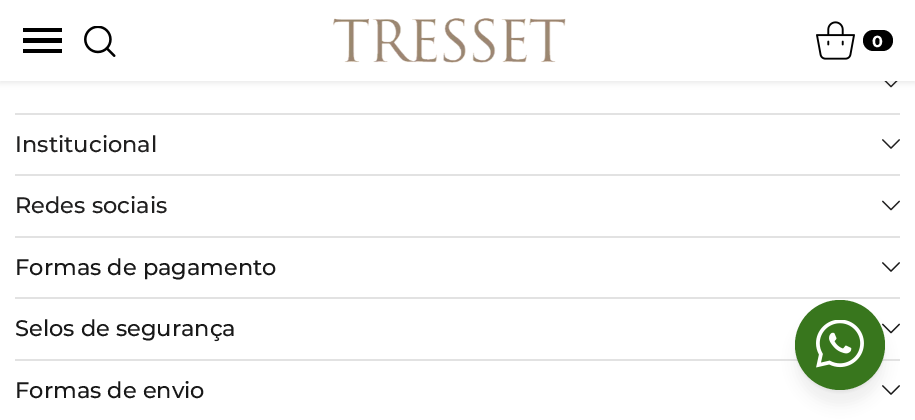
%!PS-Adobe-3.0
%%BoundingBox: 0 0 915 420
%%LanguageLevel: 3
%%Pages: 1
%%EndComments
%%BeginProlog
/setink { dup -16 bitshift 255 div exch dup -8 bitshift 255 and 255 div exch 255 and 255 div setrgbcolor } def
/usefont { [ exch dup neg 0 0 3 -1 roll 0 0 ] selectfont } def
/setalpha { dup .setfillconstantalpha .setstrokeconstantalpha } def
/disc { newpath 0 360 arc closepath } def
/rrect { 5 dict begin { /r /h /w /y /x } { exch def } forall
  x r add y moveto x w add y 2 copy h add r arct x w add y h add x 1 index r arct
  x y h add x y r arct x y 2 copy exch w add exch r arct closepath end } def
/softshadow { 12 dict begin { /a /b /q /h /w /y /x } { exch def } forall gsave /was 0 def
  9 -2 -9 { dup b mul 4 div /e exch def 1 sub .425 mul 2.718 exch exp 1 add a .99 .min exch div /now exch def
    1 1 now sub 1 was sub div sub setalpha /was now def
    w h .min e 2 mul add 0 gt { x e sub y e sub w e 2 mul add h e 2 mul add
      q e add b .6 mul add w h .min 2 div e add .min 0 .max rrect fill } if } for grestore end } def
/drawimage { 5 dict begin { /h /w /y /x /name } { exch def } forall
  gsave x y translate w h scale
  w h 8 [w 0 0 h 0 0] name (r) file false 3 colorimage grestore end } def
%%EndProlog
%%BeginSetup
<< /PageSize [915 420] /PageUsesTransparency true >> setpagedevice
%%EndSetup
%%Page: 1 1
0 .pushpdf14devicefilter
0 420 translate 1 -1 scale
4 setmiterlimit
16#FFFFFF setink
0 0 915 420 rectfill
(img4.raw) 884 81 14 7 drawimage
16#525252 setink
0 2 915 81 0 3 0.13 softshadow
[
    [0 0 915 81 16#FFFFFF]
    [23 49 39 4 16#000000]
    [23 38 39 5 16#000000]
    [23 28 39 4 16#000000]
] { aload pop setink rectfill } forall
(img1.raw) 84 26 32 31 drawimage
(img2.raw) 333 18 233 45 drawimage
(img3.raw) 816 21 39 39 drawimage
863 30 30 21 10.5 rrect fill
/Montserrat-Bold 16 usefont
16#FFFFFF setink
872 47 moveto (0) show
16#E2E2E2 setink
15 113 885 2 rectfill
/Montserrat-Medium 22.5 usefont
16#201F1F setink
15 152 moveto (Institucional) show
(img5.raw) 882 139 18 10 drawimage
16#E2E2E2 setink
15 174 885 2 rectfill
16#201F1F setink
15 213 moveto (Redes sociais) show
(img6.raw) 882 200 18 11 drawimage
16#E2E2E2 setink
15 236 885 2 rectfill
16#181818 setink
15 275 moveto (Formas de pagamento) show
(img7.raw) 882 262 18 10 drawimage
16#E2E2E2 setink
15 297 885 2 rectfill
16#181818 setink
15 336 moveto (Selos de segurança) show
(img8.raw) 882 323 18 11 drawimage
16#E2E2E2 setink
15 359 885 2 rectfill
16#181818 setink
15 398 moveto (Formas de envio) show
(img7.raw) 882 385 18 10 drawimage
16#676767 setink
795 315 90 90 45 6 0.1 softshadow
16#000000 setink
795 303 90 90 45 1 0.04 softshadow
16#38761D setink
840 345 45 disc fill
(img9.raw) 816 320 48 48 drawimage
.poppdf14devicefilter showpage
%%EOF
